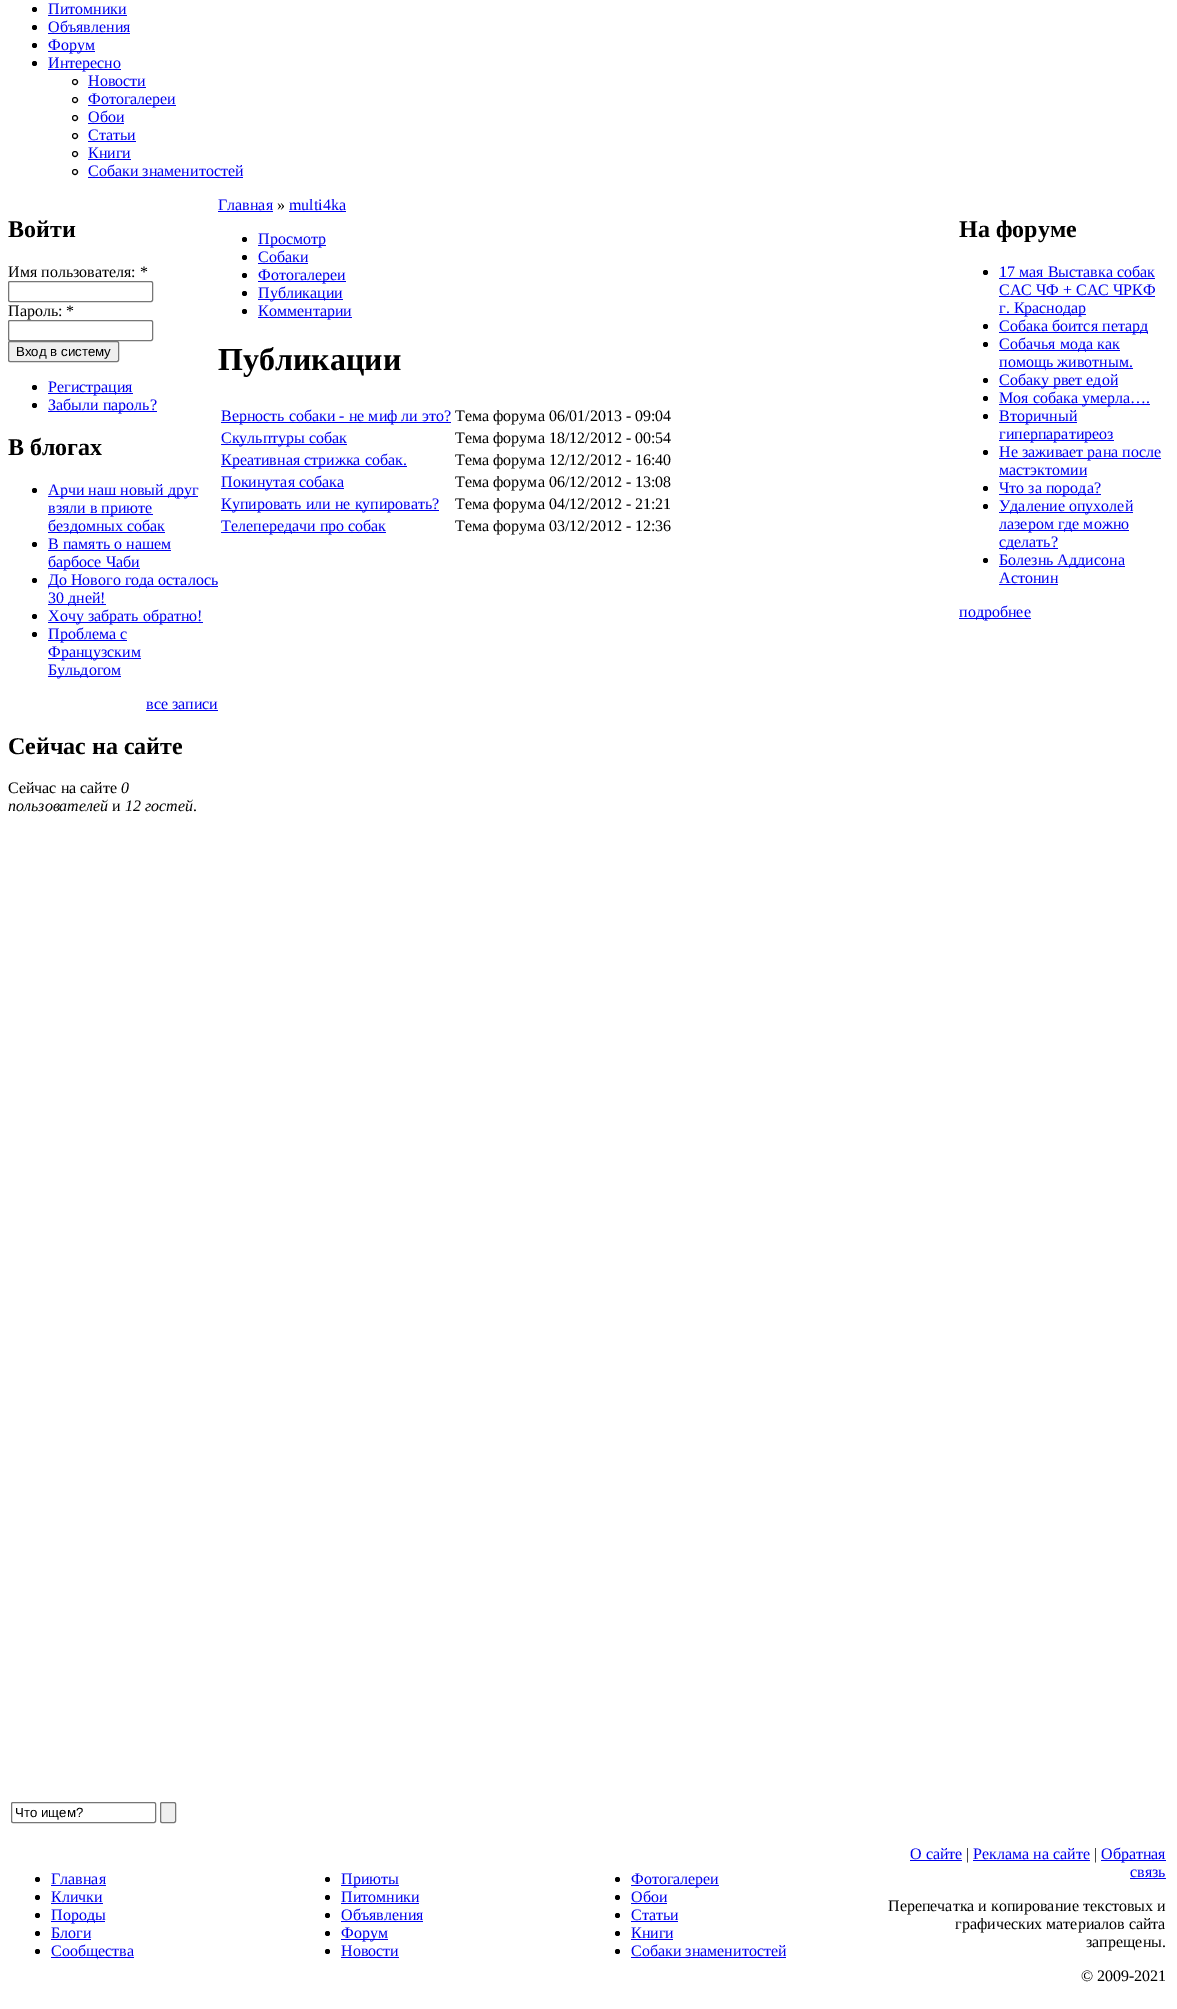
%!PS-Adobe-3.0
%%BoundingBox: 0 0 1177 2009
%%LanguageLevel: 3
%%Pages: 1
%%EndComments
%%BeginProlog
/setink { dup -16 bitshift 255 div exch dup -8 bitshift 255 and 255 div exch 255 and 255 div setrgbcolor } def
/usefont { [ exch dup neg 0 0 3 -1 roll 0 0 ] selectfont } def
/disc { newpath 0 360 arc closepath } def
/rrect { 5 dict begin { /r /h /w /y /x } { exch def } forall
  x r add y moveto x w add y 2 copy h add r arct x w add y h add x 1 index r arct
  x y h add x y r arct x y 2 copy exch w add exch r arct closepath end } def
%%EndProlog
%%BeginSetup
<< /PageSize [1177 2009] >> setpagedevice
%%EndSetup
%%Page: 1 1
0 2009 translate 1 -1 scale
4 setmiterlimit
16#FFFFFF setink
0 0 1177 2009 rectfill
16#000000 setink
34.5 9.5 2.5 disc fill
/LiberationSerif-Regular 16 usefont
16#0000EE setink
48 14 moveto (Питомники) show
48 15 79 1 rectfill
16#000000 setink
34.5 27.5 2.5 disc fill
16#0000EE setink
48 32 moveto (Объявления) show
48 33 82 1 rectfill
16#000000 setink
34.5 45.5 2.5 disc fill
16#0000EE setink
48 51 47 1 rectfill
48 50 moveto (Форум) show
16#000000 setink
34.5 63.5 2.5 disc fill
16#0000EE setink
48 69 73 1 rectfill
48 68 moveto (Интересно) show
16#000000 setink
75 82 2.5 disc stroke
16#0000EE setink
88 86 moveto (Новости) show
88 87 58 1 rectfill
16#000000 setink
75 100 2.5 disc stroke
16#0000EE setink
88 105 88 1 rectfill
88 104 moveto (Фотогалереи) show
16#000000 setink
75 118 2.5 disc stroke
16#0000EE setink
88 122 moveto (Обои) show
88 123 36 1 rectfill
16#000000 setink
75 136 2.5 disc stroke
16#0000EE setink
88 140 moveto (Статьи) show
88 141 48 1 rectfill
16#000000 setink
75 154 2.5 disc stroke
16#0000EE setink
88 158 moveto (Книги) show
88 159 43 1 rectfill
16#000000 setink
75 172 2.5 disc stroke
16#0000EE setink
88 176 moveto (Собаки знаменитостей) show
88 177 155 1 rectfill
/LiberationSerif-Bold 24 usefont
16#000000 setink
8 237 moveto (Войти) show
/LiberationSerif-Regular 16 usefont
8 277 moveto (Имя пользователя: *) show
16#767676 setink
8.5 281.5 144 20 1.5 rrect stroke
16#000000 setink
8 316 moveto (Пароль: *) show
16#767676 setink
8.5 320.5 144 20 1.5 rrect stroke
16#EFEFEF setink
8.5 341.5 110 20 1.5 rrect gsave fill grestore
16#767676 setink
stroke
/LiberationSans-Regular 13.25 usefont
16#000000 setink
16 356 moveto (Вход в систему) show
34.5 387.5 2.5 disc fill
16#0000EE setink
48 393 85 1 rectfill
/LiberationSerif-Regular 16 usefont
48 392 moveto (Регистрация) show
16#000000 setink
34.5 405.5 2.5 disc fill
16#0000EE setink
48 411 109 1 rectfill
48 410 moveto (Забыли пароль?) show
/LiberationSerif-Bold 24 usefont
16#000000 setink
8 455 moveto (В блогах) show
34.5 490.5 2.5 disc fill
16#0000EE setink
48 496 150 1 rectfill
/LiberationSerif-Regular 16 usefont
48 495 moveto (Арчи наш новый друг) show
48 514 105 1 rectfill
48 513 moveto (взяли в приюте) show
48 532 117 1 rectfill
48 531 moveto (бездомных собак) show
16#000000 setink
34.5 544.5 2.5 disc fill
16#0000EE setink
48 549 moveto (В память о нашем) show
48 550 123 1 rectfill
48 568 92 1 rectfill
48 567 moveto (барбосе Чаби) show
16#000000 setink
34.5 580.5 2.5 disc fill
16#0000EE setink
48 586 170 1 rectfill
48 585 moveto (До Нового года осталось) show
48 604 58 1 rectfill
48 603 moveto (30 дней!) show
16#000000 setink
34.5 616.5 2.5 disc fill
16#0000EE setink
48 622 155 1 rectfill
48 621 moveto (Хочу забрать обратно!) show
16#000000 setink
34.5 634.5 2.5 disc fill
16#0000EE setink
48 640 79 1 rectfill
48 639 moveto (Проблема с) show
48 658 93 1 rectfill
48 657 moveto (Французским) show
48 676 73 1 rectfill
48 675 moveto (Бульдогом) show
146 709 moveto (все записи) show
146 710 72 1 rectfill
/LiberationSerif-Bold 24 usefont
16#000000 setink
8 754 moveto (Сейчас на сайте) show
/LiberationSerif-Regular 16 usefont
8 793 moveto (Сейчас на сайте) show
/LiberationSerif-Italic 16 usefont
121 793 moveto (0) show
8 811 moveto (пользователей) show
/LiberationSerif-Regular 16 usefont
112 811 moveto (и) show
/LiberationSerif-Italic 16 usefont
125 811 moveto (12 гостей) show
/LiberationSerif-Regular 16 usefont
193 811 moveto (.) show
16#0000EE setink
218 210 moveto (Главная) show
218 211 55 1 rectfill
16#000000 setink
277 210 moveto (») show
16#0000EE setink
289 210 moveto (multi4ka) show
289 211 57 1 rectfill
16#000000 setink
244.5 239.5 2.5 disc fill
16#0000EE setink
258 245 68 1 rectfill
258 244 moveto (Просмотр) show
16#000000 setink
244.5 257.5 2.5 disc fill
16#0000EE setink
258 262 moveto (Собаки) show
258 263 50 1 rectfill
16#000000 setink
244.5 275.5 2.5 disc fill
16#0000EE setink
258 281 88 1 rectfill
258 280 moveto (Фотогалереи) show
16#000000 setink
244.5 293.5 2.5 disc fill
16#0000EE setink
258 299 85 1 rectfill
258 298 moveto (Публикации) show
16#000000 setink
244.5 311.5 2.5 disc fill
16#0000EE setink
258 317 94 1 rectfill
258 316 moveto (Комментарии) show
/LiberationSerif-Bold 32 usefont
16#000000 setink
218 370 moveto (Публикации) show
16#0000EE setink
221 422 230 1 rectfill
/LiberationSerif-Regular 16 usefont
221 421 moveto (Верность собаки - не миф ли это?) show
16#000000 setink
455 421 moveto (Тема форума 06/01/2013 - 09:04) show
16#0000EE setink
221 444 126 1 rectfill
221 443 moveto (Скульптуры собак) show
16#000000 setink
455 443 moveto (Тема форума 18/12/2012 - 00:54) show
16#0000EE setink
221 466 186 1 rectfill
221 465 moveto (Креативная стрижка собак.) show
16#000000 setink
455 465 moveto (Тема форума 12/12/2012 - 16:40) show
16#0000EE setink
221 488 123 1 rectfill
221 487 moveto (Покинутая собака) show
16#000000 setink
455 487 moveto (Тема форума 06/12/2012 - 13:08) show
16#0000EE setink
221 510 218 1 rectfill
221 509 moveto (Купировать или не купировать?) show
16#000000 setink
455 509 moveto (Тема форума 04/12/2012 - 21:21) show
16#0000EE setink
221 532 165 1 rectfill
221 531 moveto (Телепередачи про собак) show
16#000000 setink
455 531 moveto (Тема форума 03/12/2012 - 12:36) show
/LiberationSerif-Bold 24 usefont
959 237 moveto (На форуме) show
985.5 272.5 2.5 disc fill
/LiberationSerif-Regular 16 usefont
16#0000EE setink
999 277 moveto (17 мая Выставка собак) show
999 278 156 1 rectfill
999 295 moveto (САС ЧФ + САС ЧРКФ) show
999 296 156 1 rectfill
999 314 87 1 rectfill
999 313 moveto (г. Краснодар) show
16#000000 setink
985.5 326.5 2.5 disc fill
16#0000EE setink
999 332 149 1 rectfill
999 331 moveto (Собака боится петард) show
16#000000 setink
985.5 344.5 2.5 disc fill
16#0000EE setink
999 350 121 1 rectfill
999 349 moveto (Собачья мода как) show
999 368 134 1 rectfill
999 367 moveto (помощь животным.) show
16#000000 setink
985.5 380.5 2.5 disc fill
16#0000EE setink
999 386 119 1 rectfill
999 385 moveto (Собаку рвет едой) show
16#000000 setink
985.5 398.5 2.5 disc fill
16#0000EE setink
999 404 151 1 rectfill
999 403 moveto (Моя собака умерла….) show
16#000000 setink
985.5 416.5 2.5 disc fill
16#0000EE setink
999 422 78 1 rectfill
999 421 moveto (Вторичный) show
999 440 115 1 rectfill
999 439 moveto (гиперпаратиреоз) show
16#000000 setink
985.5 452.5 2.5 disc fill
16#0000EE setink
999 458 162 1 rectfill
999 457 moveto (Не заживает рана после) show
999 475 moveto (мастэктомии) show
999 476 88 1 rectfill
16#000000 setink
985.5 488.5 2.5 disc fill
16#0000EE setink
999 494 102 1 rectfill
999 493 moveto (Что за порода?) show
16#000000 setink
985.5 506.5 2.5 disc fill
16#0000EE setink
999 512 134 1 rectfill
999 511 moveto (Удаление опухолей) show
999 530 130 1 rectfill
999 529 moveto (лазером где можно) show
999 548 59 1 rectfill
999 547 moveto (сделать?) show
16#000000 setink
985.5 560.5 2.5 disc fill
16#0000EE setink
999 566 126 1 rectfill
999 565 moveto (Болезнь Аддисона) show
999 583 moveto (Астонин) show
999 584 59 1 rectfill
959 618 72 1 rectfill
959 617 moveto (подробнее) show
16#767676 setink
11.5 1802.5 144 20 1.5 rrect stroke
/LiberationSans-Regular 13.25 usefont
16#000000 setink
15 1817 moveto (Что ищем?) show
16#EFEFEF setink
160.5 1802.5 15 20 1.5 rrect gsave fill grestore
16#767676 setink
stroke
16#000000 setink
37.5 1879.5 2.5 disc fill
/LiberationSerif-Regular 16 usefont
16#0000EE setink
51 1884 moveto (Главная) show
51 1885 55 1 rectfill
16#000000 setink
37.5 1897.5 2.5 disc fill
16#0000EE setink
51 1902 moveto (Клички) show
51 1903 52 1 rectfill
16#000000 setink
37.5 1915.5 2.5 disc fill
16#0000EE setink
51 1921 54 1 rectfill
51 1920 moveto (Породы) show
16#000000 setink
37.5 1933.5 2.5 disc fill
16#0000EE setink
51 1938 moveto (Блоги) show
51 1939 40 1 rectfill
16#000000 setink
37.5 1951.5 2.5 disc fill
16#0000EE setink
51 1957 83 1 rectfill
51 1956 moveto (Сообщества) show
16#000000 setink
327.5 1879.5 2.5 disc fill
16#0000EE setink
341 1885 58 1 rectfill
341 1884 moveto (Приюты) show
16#000000 setink
327.5 1897.5 2.5 disc fill
16#0000EE setink
341 1902 moveto (Питомники) show
341 1903 78 1 rectfill
16#000000 setink
327.5 1915.5 2.5 disc fill
16#0000EE setink
341 1920 moveto (Объявления) show
341 1921 82 1 rectfill
16#000000 setink
327.5 1933.5 2.5 disc fill
16#0000EE setink
341 1939 47 1 rectfill
341 1938 moveto (Форум) show
16#000000 setink
327.5 1951.5 2.5 disc fill
16#0000EE setink
341 1956 moveto (Новости) show
341 1957 58 1 rectfill
16#000000 setink
617.5 1879.5 2.5 disc fill
16#0000EE setink
631 1885 88 1 rectfill
631 1884 moveto (Фотогалереи) show
16#000000 setink
617.5 1897.5 2.5 disc fill
16#0000EE setink
631 1902 moveto (Обои) show
631 1903 36 1 rectfill
16#000000 setink
617.5 1915.5 2.5 disc fill
16#0000EE setink
631 1920 moveto (Статьи) show
631 1921 47 1 rectfill
16#000000 setink
617.5 1933.5 2.5 disc fill
16#0000EE setink
631 1938 moveto (Книги) show
631 1939 42 1 rectfill
16#000000 setink
617.5 1951.5 2.5 disc fill
16#0000EE setink
631 1956 moveto (Собаки знаменитостей) show
631 1957 155 1 rectfill
910 1859 moveto (О сайте) show
910 1860 52 1 rectfill
16#000000 setink
966 1859 moveto (|) show
16#0000EE setink
973 1859 moveto (Реклама на сайте) show
973 1860 117 1 rectfill
16#000000 setink
1094 1859 moveto (|) show
16#0000EE setink
1101 1860 65 1 rectfill
1101 1859 moveto (Обратная) show
1130 1877 moveto (связь) show
1130 1878 36 1 rectfill
16#000000 setink
[
    [(Перепечатка и копирование текстовых и) 888 1911]
    [(графических материалов сайта) 955 1929]
    [(запрещены.) 1086 1947]
    [(© 2009-2021) 1081 1981]
] { aload pop moveto show } forall
showpage
%%EOF
